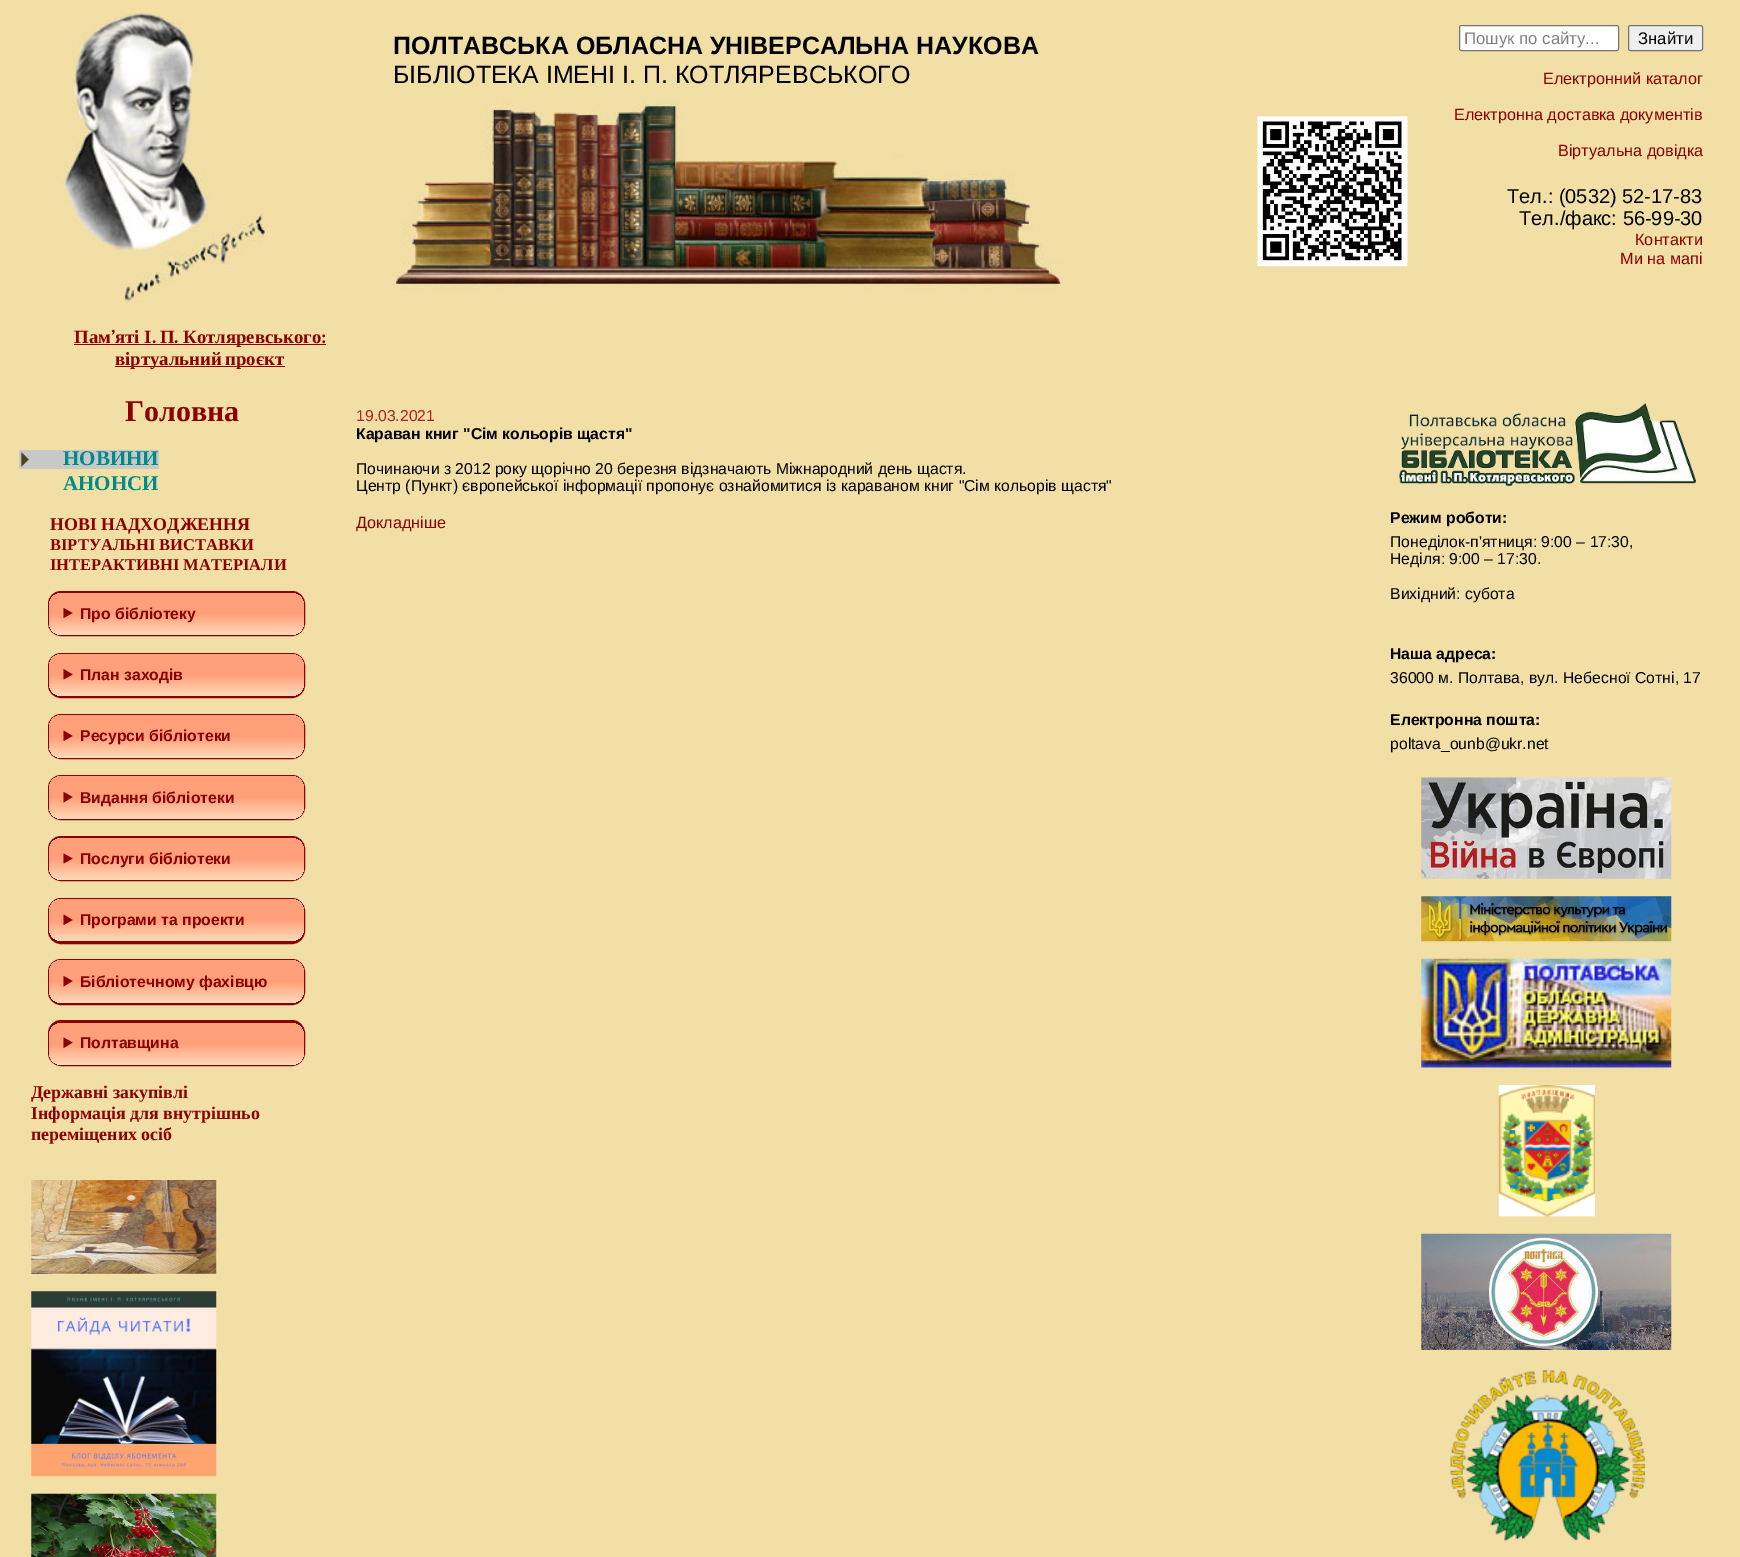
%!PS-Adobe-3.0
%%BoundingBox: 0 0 1740 1557
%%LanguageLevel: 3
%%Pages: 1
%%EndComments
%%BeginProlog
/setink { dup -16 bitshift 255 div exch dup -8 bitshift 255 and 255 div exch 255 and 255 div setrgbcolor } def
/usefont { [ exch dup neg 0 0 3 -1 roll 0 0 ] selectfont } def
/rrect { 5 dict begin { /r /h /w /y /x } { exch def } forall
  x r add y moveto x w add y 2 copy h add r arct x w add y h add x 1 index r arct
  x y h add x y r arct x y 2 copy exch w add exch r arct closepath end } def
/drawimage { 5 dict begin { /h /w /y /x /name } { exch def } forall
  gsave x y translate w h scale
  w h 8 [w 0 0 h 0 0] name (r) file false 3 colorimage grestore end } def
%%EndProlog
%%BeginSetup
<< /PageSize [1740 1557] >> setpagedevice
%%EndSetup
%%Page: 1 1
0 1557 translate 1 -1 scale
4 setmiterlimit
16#F1DFA5 setink
0 0 1740 1557 rectfill
/LiberationSans-Bold 25 usefont
16#000000 setink
393 54 moveto (ПОЛТАВСЬКА ОБЛАСНА УНІВЕРСАЛЬНА НАУКОВА) show
/LiberationSans-Regular 25 usefont
393 83 moveto (БІБЛІОТЕКА ІМЕНІ І. П. КОТЛЯРЕВСЬКОГО) show
(img1.raw) 394 101 669 190 drawimage
16#FFFFFF setink
1459.5 25.5 159 25 2 rrect gsave fill grestore
16#767676 setink
stroke
/LiberationSans-Regular 16.75 usefont
16#808080 setink
1464 44 moveto (Пошук по сайту...) show
16#EFEFEF setink
1628.5 25.5 74 25 2 rrect gsave fill grestore
16#767676 setink
stroke
16#000000 setink
1638 44 moveto (Знайти) show
/LiberationSans-Regular 16.25 usefont
16#8B0000 setink
[
    [(Електронний каталог) 1543 84]
    [(Електронна доставка документів) 1454 120]
    [(Віртуальна довідка) 1558 156]
] { aload pop moveto show } forall
/LiberationSans-Regular 20 usefont
16#000000 setink
1507 203 moveto (Тел.: \(0532\) 52-17-83) show
1519 225 moveto (Тел./факс: 56-99-30) show
/LiberationSans-Regular 16.25 usefont
16#8B0000 setink
1635 245 moveto (Контакти) show
1620 264 moveto (Ми на мапі) show
(img2.raw) 1257 116 151 151 drawimage
(img3.raw) 62 12 203 291 drawimage
/LiberationSerif-Bold 18.75 usefont
74 343 moveto (Пам) show
/Caladea-Bold 18.75 usefont
111 343 moveto (’) show
/LiberationSerif-Bold 18.75 usefont
115 343 moveto (яті І) show
/Caladea-Bold 18.75 usefont
152 343 moveto (.) show
74 344 252 1 rectfill
/LiberationSerif-Bold 18.75 usefont
160 343 moveto (П) show
/Caladea-Bold 18.75 usefont
174 343 moveto (.) show
/LiberationSerif-Bold 18.75 usefont
183 343 moveto (Котляревського) show
/Caladea-Bold 18.75 usefont
321 343 moveto (:) show
115 366 170 1 rectfill
/LiberationSerif-Bold 18.75 usefont
115 365 moveto -1 0 32 (віртуальний проєкт) widthshow
/LiberationSerif-Bold 30 usefont
125 421 moveto (Головна) show
16#C8C8C8 setink
19 450 140 19 rectfill
(img4.raw) 21 452 8 15 drawimage
/LiberationSerif-Bold 21 usefont
16#008B8B setink
63 465 moveto (НОВИНИ) show
63 490 moveto (АНОНСИ) show
/LiberationSerif-Bold 17.9 usefont
16#8B0000 setink
50 530 moveto (НОВІ НАДХОДЖЕННЯ) show
/LiberationSerif-Bold 16.5 usefont
50 550 moveto (ВІРТУАЛЬНІ ВИСТАВКИ) show
50 570 moveto (ІНТЕРАКТИВНІ МАТЕРІАЛИ) show
3 setlinewidth
49.5 592.5 254 42 11.5 rrect stroke
gsave 49 593 255 42 13 rrect clip newpath
<< /ShadingType 2 /ColorSpace /DeviceRGB /Coords [176 593 176 635] /Extend [true true] /Function << /FunctionType 3 /Domain [0 1] /Functions [<< /FunctionType 2 /Domain [0 1] /C0 [1 0.627 0.478] /C1 [1 0.627 0.478] /N 1 >> << /FunctionType 2 /Domain [0 1] /C0 [1 0.627 0.478] /C1 [1 0.855 0.725] /N 1 >>] /Bounds [0.5] /Encode [0 1 0 1] >> >> shfill grestore
63.5 608 moveto 72.5 613 lineto 63.5 618 lineto closepath fill
/LiberationSans-Bold 15.75 usefont
80 619 moveto (Про бібліотеку) show
49.5 654.5 254 42 11.5 rrect stroke
gsave 49 654 255 42 13 rrect clip newpath
<< /ShadingType 2 /ColorSpace /DeviceRGB /Coords [176 654 176 696] /Extend [true true] /Function << /FunctionType 3 /Domain [0 1] /Functions [<< /FunctionType 2 /Domain [0 1] /C0 [1 0.627 0.478] /C1 [1 0.627 0.478] /N 1 >> << /FunctionType 2 /Domain [0 1] /C0 [1 0.627 0.478] /C1 [1 0.855 0.725] /N 1 >>] /Bounds [0.5] /Encode [0 1 0 1] >> >> shfill grestore
63.5 669 moveto 72.5 674.5 lineto 63.5 679.5 lineto closepath fill
80 680 moveto (План заходів) show
49.5 715.5 254 42 11.5 rrect stroke
gsave 49 715 255 43 13 rrect clip newpath
<< /ShadingType 2 /ColorSpace /DeviceRGB /Coords [176 715 176 758] /Extend [true true] /Function << /FunctionType 3 /Domain [0 1] /Functions [<< /FunctionType 2 /Domain [0 1] /C0 [1 0.627 0.478] /C1 [1 0.627 0.478] /N 1 >> << /FunctionType 2 /Domain [0 1] /C0 [1 0.627 0.478] /C1 [1 0.855 0.725] /N 1 >>] /Bounds [0.5] /Encode [0 1 0 1] >> >> shfill grestore
63.5 730.5 moveto 72.5 736 lineto 63.5 741 lineto closepath fill
80 741 moveto (Ресурси бібліотеки) show
49.5 776.5 254 42 11.5 rrect stroke
gsave 49 776 255 43 13 rrect clip newpath
<< /ShadingType 2 /ColorSpace /DeviceRGB /Coords [176 776 176 819] /Extend [true true] /Function << /FunctionType 3 /Domain [0 1] /Functions [<< /FunctionType 2 /Domain [0 1] /C0 [1 0.627 0.478] /C1 [1 0.627 0.478] /N 1 >> << /FunctionType 2 /Domain [0 1] /C0 [1 0.627 0.478] /C1 [1 0.855 0.725] /N 1 >>] /Bounds [0.5] /Encode [0 1 0 1] >> >> shfill grestore
63.5 792 moveto 72.5 797 lineto 63.5 802.5 lineto closepath fill
80 803 moveto (Видання бібліотеки) show
49.5 837.5 254 42 11.5 rrect stroke
gsave 49 838 255 42 13 rrect clip newpath
<< /ShadingType 2 /ColorSpace /DeviceRGB /Coords [176 838 176 880] /Extend [true true] /Function << /FunctionType 3 /Domain [0 1] /Functions [<< /FunctionType 2 /Domain [0 1] /C0 [1 0.627 0.478] /C1 [1 0.627 0.478] /N 1 >> << /FunctionType 2 /Domain [0 1] /C0 [1 0.627 0.478] /C1 [1 0.855 0.725] /N 1 >>] /Bounds [0.5] /Encode [0 1 0 1] >> >> shfill grestore
63.5 853.5 moveto 72.5 858.5 lineto 63.5 863.5 lineto closepath fill
80 864 moveto (Послуги бібліотеки) show
gsave
48 898 257 46 13 rrect clip newpath
gsave 48 900 moveto 305 900 lineto 305 941 lineto 48 941 lineto closepath clip newpath
<< /ShadingType 2 /ColorSpace /DeviceRGB /Coords [176 900 176 941] /Extend [true true] /Function << /FunctionType 2 /Domain [0 1] /C0 [0.988 1 0.957] /C1 [0.914 0.914 0.808] /N 1 >> >> shfill grestore
grestore
49.5 899.5 254 43 11.5 rrect stroke
gsave 49 899 255 42 13 rrect clip newpath
<< /ShadingType 2 /ColorSpace /DeviceRGB /Coords [176 899 176 941] /Extend [true true] /Function << /FunctionType 3 /Domain [0 1] /Functions [<< /FunctionType 2 /Domain [0 1] /C0 [1 0.627 0.478] /C1 [1 0.627 0.478] /N 1 >> << /FunctionType 2 /Domain [0 1] /C0 [1 0.627 0.478] /C1 [1 0.855 0.725] /N 1 >>] /Bounds [0.5] /Encode [0 1 0 1] >> >> shfill grestore
63.5 914.5 moveto 72.5 920 lineto 63.5 925 lineto closepath fill
80 925 moveto (Програми та проекти) show
49.5 960.5 254 43 11.5 rrect stroke
gsave 49 960 255 43 13 rrect clip newpath
<< /ShadingType 2 /ColorSpace /DeviceRGB /Coords [176 960 176 1003] /Extend [true true] /Function << /FunctionType 3 /Domain [0 1] /Functions [<< /FunctionType 2 /Domain [0 1] /C0 [1 0.627 0.478] /C1 [1 0.627 0.478] /N 1 >> << /FunctionType 2 /Domain [0 1] /C0 [1 0.627 0.478] /C1 [1 0.855 0.725] /N 1 >>] /Bounds [0.5] /Encode [0 1 0 1] >> >> shfill grestore
63.5 976 moveto 72.5 981 lineto 63.5 986.5 lineto closepath fill
80 987 moveto (Бiблiотечному фахiвцю) show
gsave
48 1020 257 46 13 rrect clip newpath
gsave 48 1023 moveto 305 1023 lineto 305 1064 lineto 48 1064 lineto closepath clip newpath
<< /ShadingType 2 /ColorSpace /DeviceRGB /Coords [176 1023 176 1064] /Extend [true true] /Function << /FunctionType 2 /Domain [0 1] /C0 [0.988 1 0.957] /C1 [0.914 0.914 0.808] /N 1 >> >> shfill grestore
grestore
49.5 1021.5 254 43 11.5 rrect stroke
gsave 49 1023 255 42 13 rrect clip newpath
<< /ShadingType 2 /ColorSpace /DeviceRGB /Coords [176 1023 176 1065] /Extend [true true] /Function << /FunctionType 3 /Domain [0 1] /Functions [<< /FunctionType 2 /Domain [0 1] /C0 [1 0.627 0.478] /C1 [1 0.627 0.478] /N 1 >> << /FunctionType 2 /Domain [0 1] /C0 [1 0.627 0.478] /C1 [1 0.855 0.725] /N 1 >>] /Bounds [0.5] /Encode [0 1 0 1] >> >> shfill grestore
63.5 1037.5 moveto 72.5 1042.5 lineto 63.5 1048 lineto closepath fill
80 1048 moveto (Полтавщина) show
/LiberationSerif-Bold 17.9 usefont
[
    [(Державні закупівлі) 31 1098]
    [(Інформація для внутрішньо) 31 1119]
    [(переміщених осіб) 31 1140]
] { aload pop moveto show } forall
(img5.raw) 31 1180 186 94 drawimage
(img6.raw) 31 1291 186 186 drawimage
(img7.raw) 31 1493 186 64 drawimage
/LiberationSans-Regular 15.75 usefont
16#B22222 setink
356 421 moveto (19.03.2021) show
/LiberationSans-Bold 15.75 usefont
16#000000 setink
356 439 moveto (Караван книг "Сім кольорів щастя") show
/LiberationSans-Regular 15.75 usefont
356 474 moveto (Починаючи з 2012 року щорічно 20 березня відзначають Міжнародний день щастя.) show
356 491 moveto (Центр \(Пункт\) європейської інформації пропонує ознайомитися із караваном книг "Сім кольорів щастя") show
/LiberationSans-Regular 16.25 usefont
16#8B0000 setink
356 528 moveto (Докладніше) show
(img8.raw) 1399 403 297 84 drawimage
/LiberationSans-Bold 15.75 usefont
16#000000 setink
1390 523 moveto (Режим роботи:) show
/LiberationSans-Regular 15.75 usefont
[
    [(Понеділок-п'ятниця: 9:00 – 17:30,) 1390 547]
    [(Неділя: 9:00 – 17:30.) 1390 564]
    [(Вихідний: субота) 1390 599]
] { aload pop moveto show } forall
/LiberationSans-Bold 15.75 usefont
1390 659 moveto (Наша адреса:) show
/LiberationSans-Regular 15.75 usefont
1390 683 moveto (36000 м. Полтава, вул. Небесної Сотні, 17) show
/LiberationSans-Bold 15.75 usefont
1390 725 moveto (Електронна пошта:) show
/LiberationSans-Regular 15.75 usefont
1390 749 moveto (poltava_ounb@ukr.net) show
(img9.raw) 1421 777 251 102 drawimage
(img10.raw) 1421 896 251 46 drawimage
(img11.raw) 1421 958 251 110 drawimage
(img12.raw) 1498 1085 97 132 drawimage
(img13.raw) 1421 1233 251 117 drawimage
(img14.raw) 1450 1370 196 172 drawimage
showpage
%%EOF
